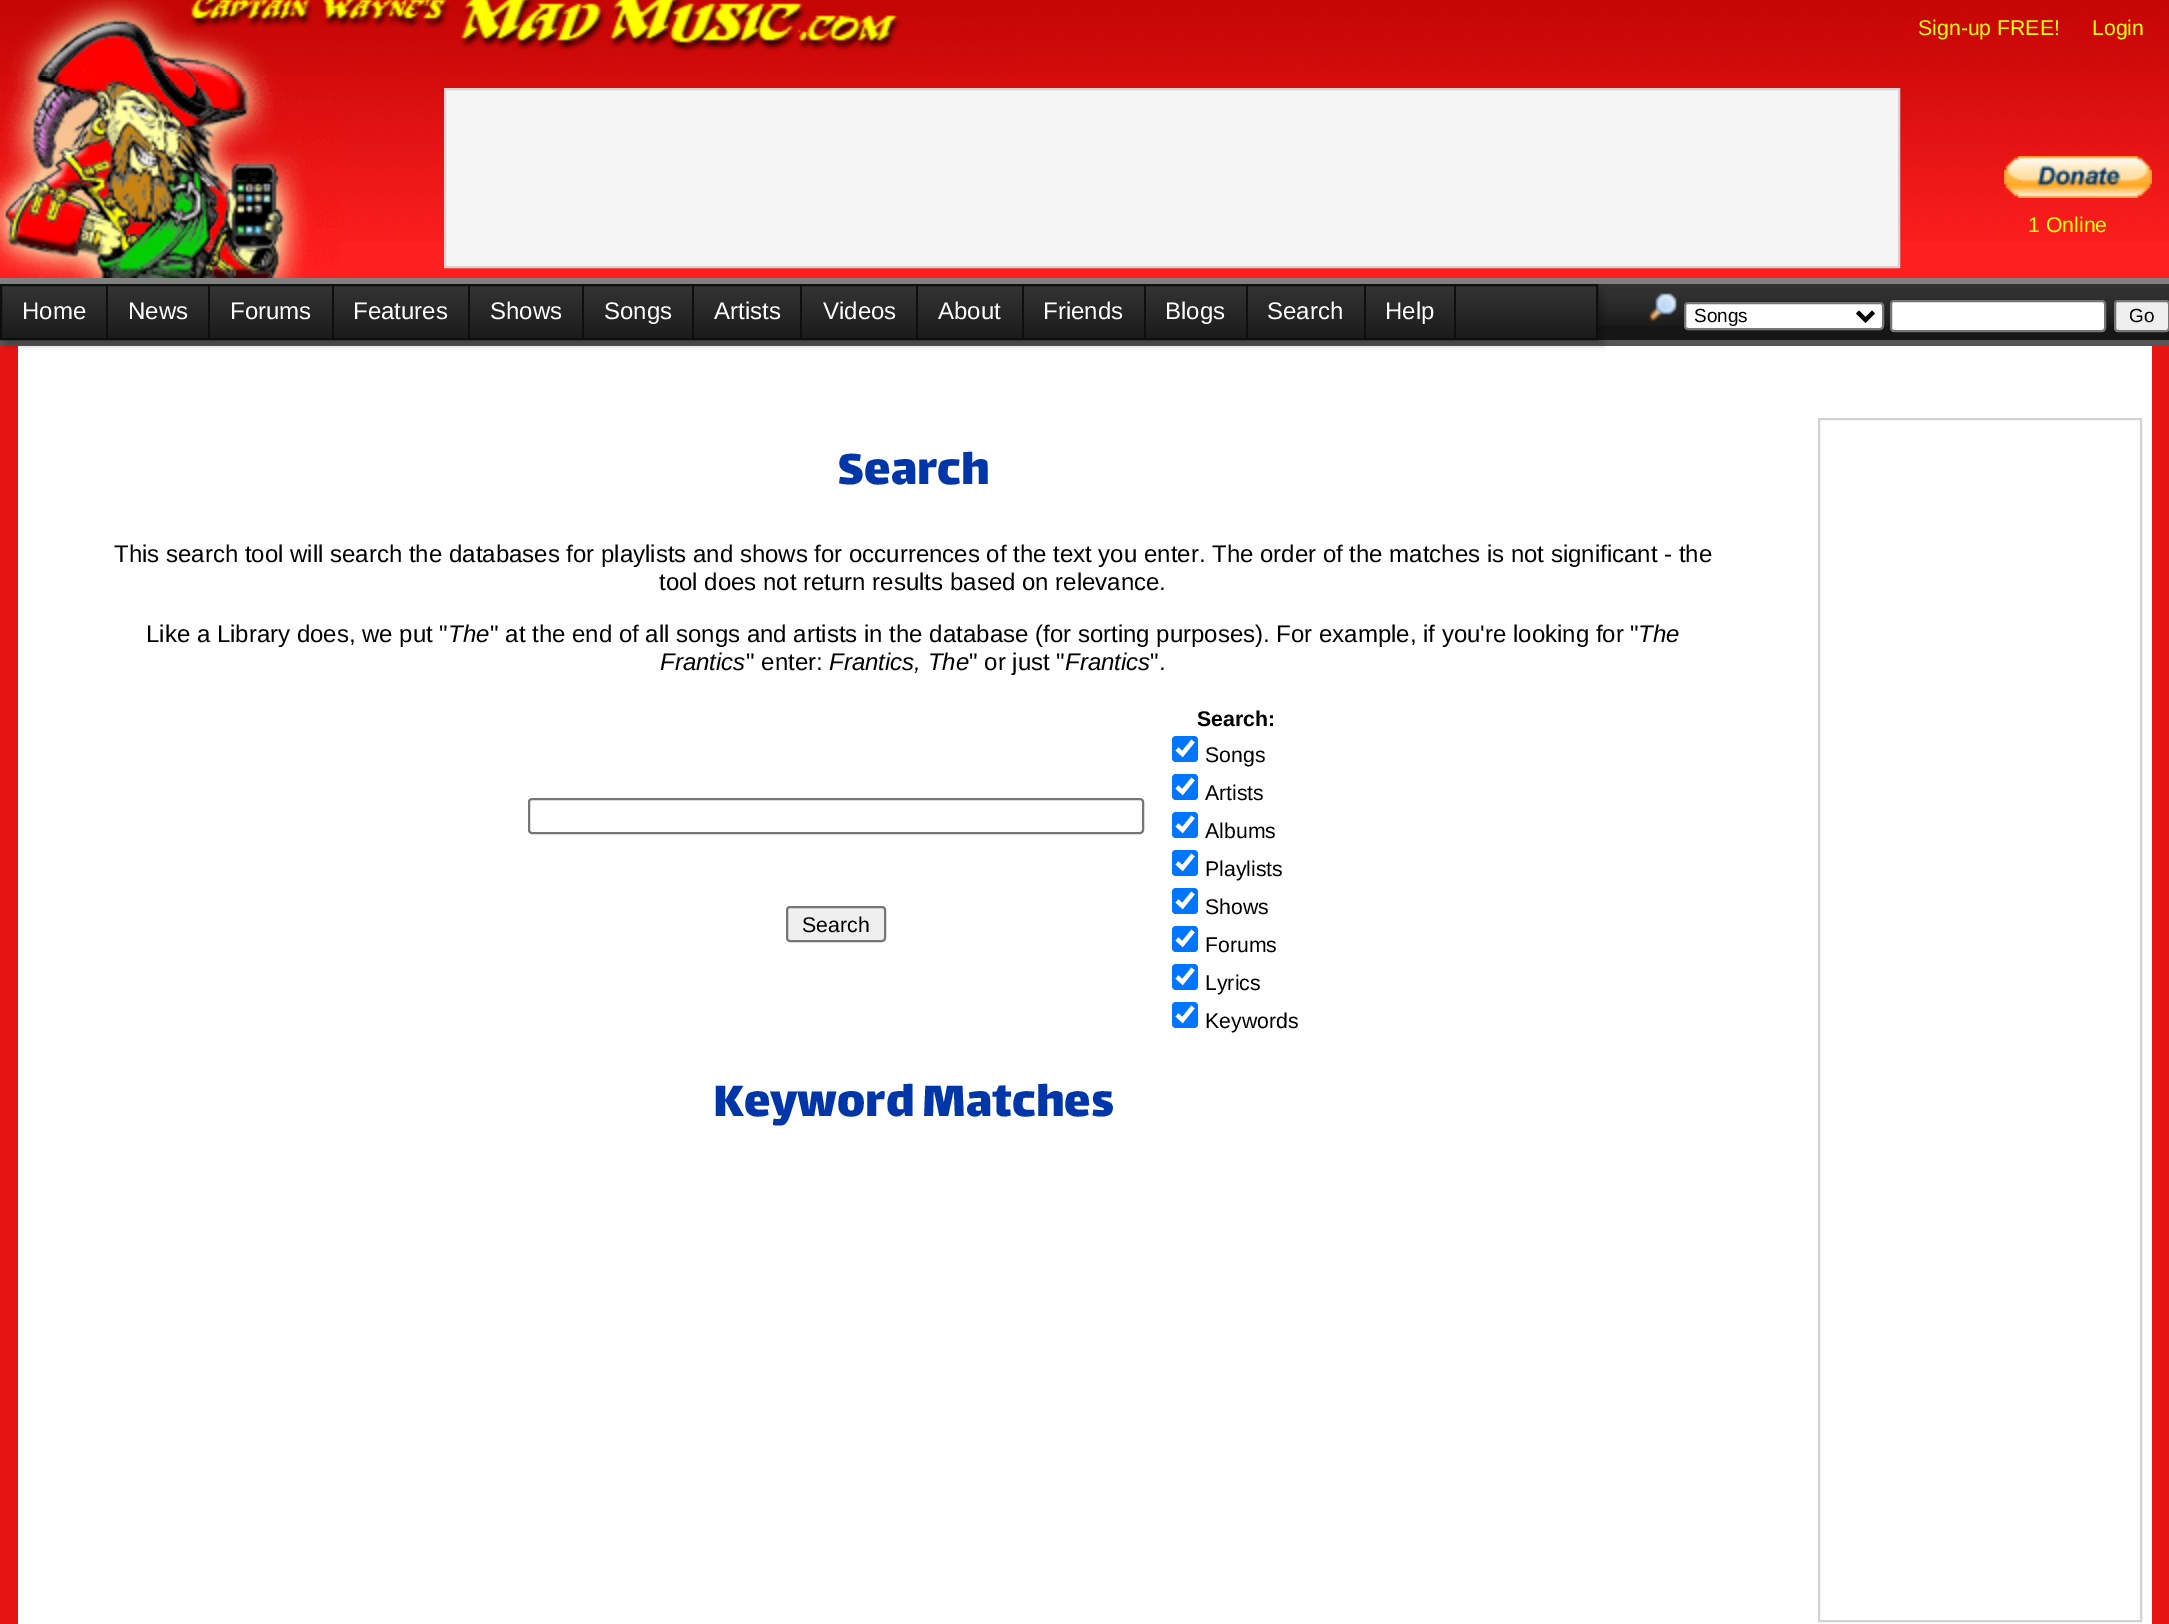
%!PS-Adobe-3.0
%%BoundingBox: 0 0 2169 1624
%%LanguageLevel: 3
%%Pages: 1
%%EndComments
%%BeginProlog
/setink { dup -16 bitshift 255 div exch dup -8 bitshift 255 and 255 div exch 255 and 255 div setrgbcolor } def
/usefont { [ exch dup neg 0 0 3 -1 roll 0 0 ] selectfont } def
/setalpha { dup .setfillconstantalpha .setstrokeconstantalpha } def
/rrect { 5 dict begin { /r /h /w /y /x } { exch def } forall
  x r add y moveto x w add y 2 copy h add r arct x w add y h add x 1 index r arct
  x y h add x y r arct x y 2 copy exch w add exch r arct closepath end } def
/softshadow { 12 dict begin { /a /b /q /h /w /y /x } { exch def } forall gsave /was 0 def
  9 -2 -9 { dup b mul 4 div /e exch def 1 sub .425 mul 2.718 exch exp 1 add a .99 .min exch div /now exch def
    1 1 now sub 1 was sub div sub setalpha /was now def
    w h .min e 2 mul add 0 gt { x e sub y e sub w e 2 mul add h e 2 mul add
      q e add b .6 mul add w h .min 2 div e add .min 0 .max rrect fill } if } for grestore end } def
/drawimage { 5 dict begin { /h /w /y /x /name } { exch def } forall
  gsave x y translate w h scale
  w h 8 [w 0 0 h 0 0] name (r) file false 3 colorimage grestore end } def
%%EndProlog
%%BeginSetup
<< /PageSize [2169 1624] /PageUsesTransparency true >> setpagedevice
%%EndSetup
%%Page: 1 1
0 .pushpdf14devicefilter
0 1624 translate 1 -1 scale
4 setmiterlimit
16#FFFFFF setink
0 0 2169 1624 rectfill
(img1.raw) 0 0 1016 76 drawimage
(img2.raw) 1016 0 282 76 drawimage
(img3.raw) 1298 0 871 76 drawimage
/LiberationSans-Regular 21.25 usefont
16#FFFF00 setink
1918 35 moveto (Sign-up FREE!) show
2092 35 moveto (Login) show
16#FE1F1F setink
340 242 1829 36 rectfill
(img4.raw) 0 76 340 202 drawimage
(img5.raw) 340 76 1662 166 drawimage
16#F5F5F5 setink
445 89 moveto 1899 89 lineto 1899 267 lineto 445 267 lineto closepath gsave fill grestore
16#D3D3D3 setink
2 setlinewidth
stroke
(img6.raw) 2002 76 167 166 drawimage
(img7.raw) 2004 156 148 42 drawimage
16#FFFF00 setink
2028 232 moveto (1 Online) show
[
    [0 278 2169 6 16#808080]
    [0 340 2169 6 16#555555]
    [1598 326 571 14 16#161616]
] { aload pop setink rectfill } forall
(img8.raw) 1598 284 571 42 drawimage
16#E61514 setink
0 346 18 1278 rectfill
16#000000 setink
6 290 1598 56 0 3 0.2 softshadow
gsave 2 286 moveto 1596 286 lineto 1596 338 lineto 2 338 lineto closepath clip newpath
<< /ShadingType 2 /ColorSpace /DeviceRGB /Coords [799 286 799 338] /Extend [true true] /Function << /FunctionType 2 /Domain [0 1] /C0 [0.208 0.204 0.204] /C1 [0.106 0.106 0.106] /N 1 >> >> shfill grestore
16#0E0E0E setink
1 285 1596 54 rectstroke
106 286 2 52 rectfill
/LiberationSans-Regular 24 usefont
16#FFFFFF setink
22 319 moveto (Home) show
16#0E0E0E setink
208 286 2 52 rectfill
16#FFFFFF setink
128 319 moveto (News) show
16#0E0E0E setink
332 286 2 52 rectfill
16#FFFFFF setink
230 319 moveto (Forums) show
16#0E0E0E setink
468 286 2 52 rectfill
16#FFFFFF setink
353 319 moveto (Features) show
16#0E0E0E setink
582 286 2 52 rectfill
16#FFFFFF setink
490 319 moveto (Shows) show
16#0E0E0E setink
692 286 2 52 rectfill
16#FFFFFF setink
604 319 moveto (Songs) show
16#0E0E0E setink
800 286 2 52 rectfill
16#FFFFFF setink
714 319 moveto (Artists) show
16#0E0E0E setink
916 286 2 52 rectfill
16#FFFFFF setink
823 319 moveto (Videos) show
16#0E0E0E setink
1022 286 2 52 rectfill
16#FFFFFF setink
938 319 moveto (About) show
16#0E0E0E setink
1144 286 2 52 rectfill
16#FFFFFF setink
1043 319 moveto (Friends) show
16#0E0E0E setink
1246 286 2 52 rectfill
16#FFFFFF setink
1165 319 moveto (Blogs) show
16#0E0E0E setink
1364 286 2 52 rectfill
16#FFFFFF setink
1267 319 moveto (Search) show
16#0E0E0E setink
1454 286 2 52 rectfill
16#FFFFFF setink
1385 319 moveto (Help) show
(img9.raw) 1649 293 28 29 drawimage
1685 303 198 26 3 rrect gsave fill grestore
16#767676 setink
stroke
16#000000 setink
4 setlinewidth
1857.5 312 moveto 1865.5 320 lineto 1873.5 312 lineto stroke
/LiberationSans-Regular 19 usefont
1694 322 moveto (Songs) show
16#FFFFFF setink
1891 301 214 30 3 rrect gsave fill grestore
16#767676 setink
2 setlinewidth
stroke
16#EFEFEF setink
2115 301 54 30 3 rrect gsave fill grestore
16#767676 setink
stroke
16#000000 setink
2129 322 moveto (Go) show
16#E61514 setink
2152 346 17 1278 rectfill
/Lalezar-Regular 53.25 usefont
16#0136A8 setink
837 484 moveto (Search) show
/LiberationSans-Regular 24 usefont
16#000000 setink
[
    [(This search tool will search the databases for playlists and shows for occurrences of the text you enter. The order of the matches is not significant - the) 114 562]
    [(tool does not return results based on relevance.) 659 590]
    [(Like a Library does, we put ") 146 642]
] { aload pop moveto show } forall
/LiberationSans-Italic 24 usefont
448 642 moveto (The) show
/LiberationSans-Regular 24 usefont
490 642 moveto (" at the end of all songs and artists in the database \(for sorting purposes\). For example, if you're looking for ") show
/LiberationSans-Italic 24 usefont
1638 642 moveto (The) show
660 670 moveto (Frantics) show
/LiberationSans-Regular 24 usefont
746 670 moveto (" enter:) show
/LiberationSans-Italic 24 usefont
829 670 moveto (Frantics, The) show
/LiberationSans-Regular 24 usefont
969 670 moveto (" or just ") show
/LiberationSans-Italic 24 usefont
1065 670 moveto (Frantics) show
/LiberationSans-Regular 24 usefont
1150 670 moveto (".) show
16#767676 setink
529 799 614 34 3 rrect stroke
16#EFEFEF setink
787 907 98 34 3 rrect gsave fill grestore
16#767676 setink
stroke
/LiberationSans-Regular 21.25 usefont
16#000000 setink
802 932 moveto (Search) show
/LiberationSans-Bold 21.25 usefont
1197 726 moveto (Search:) show
16#0075FF setink
1172 736 26 26 4 rrect fill
16#FFFFFF setink
4.2 setlinewidth
1177 749 moveto 1182.5 754 lineto 1193 741 lineto stroke
/LiberationSans-Regular 21.25 usefont
16#000000 setink
1205 762 moveto (Songs) show
16#0075FF setink
1172 774 26 26 4 rrect fill
16#FFFFFF setink
1177 787 moveto 1182.5 792 lineto 1193 779 lineto stroke
16#000000 setink
1205 800 moveto (Artists) show
16#0075FF setink
1172 812 26 26 4 rrect fill
16#FFFFFF setink
1177 825 moveto 1182.5 830 lineto 1193 817 lineto stroke
16#000000 setink
1205 838 moveto (Albums) show
16#0075FF setink
1172 850 26 26 4 rrect fill
16#FFFFFF setink
1177 863 moveto 1182.5 868 lineto 1193 855 lineto stroke
16#000000 setink
1205 876 moveto (Playlists) show
16#0075FF setink
1172 888 26 26 4 rrect fill
16#FFFFFF setink
1177 901 moveto 1182.5 906 lineto 1193 893 lineto stroke
16#000000 setink
1205 914 moveto (Shows) show
16#0075FF setink
1172 926 26 26 4 rrect fill
16#FFFFFF setink
1177 939 moveto 1182.5 944 lineto 1193 931 lineto stroke
16#000000 setink
1205 952 moveto (Forums) show
16#0075FF setink
1172 964 26 26 4 rrect fill
16#FFFFFF setink
1177 977 moveto 1182.5 982 lineto 1193 969 lineto stroke
16#000000 setink
1205 990 moveto (Lyrics) show
16#0075FF setink
1172 1002 26 26 4 rrect fill
16#FFFFFF setink
1177 1015 moveto 1182.5 1020 lineto 1193 1007 lineto stroke
16#000000 setink
1205 1028 moveto (Keywords) show
/Lalezar-Regular 53.25 usefont
16#0136A8 setink
713 1116 moveto (Keyword Matches) show
16#D3D3D3 setink
2 setlinewidth
1819 419 322 1202 rectstroke
.poppdf14devicefilter showpage
%%EOF
